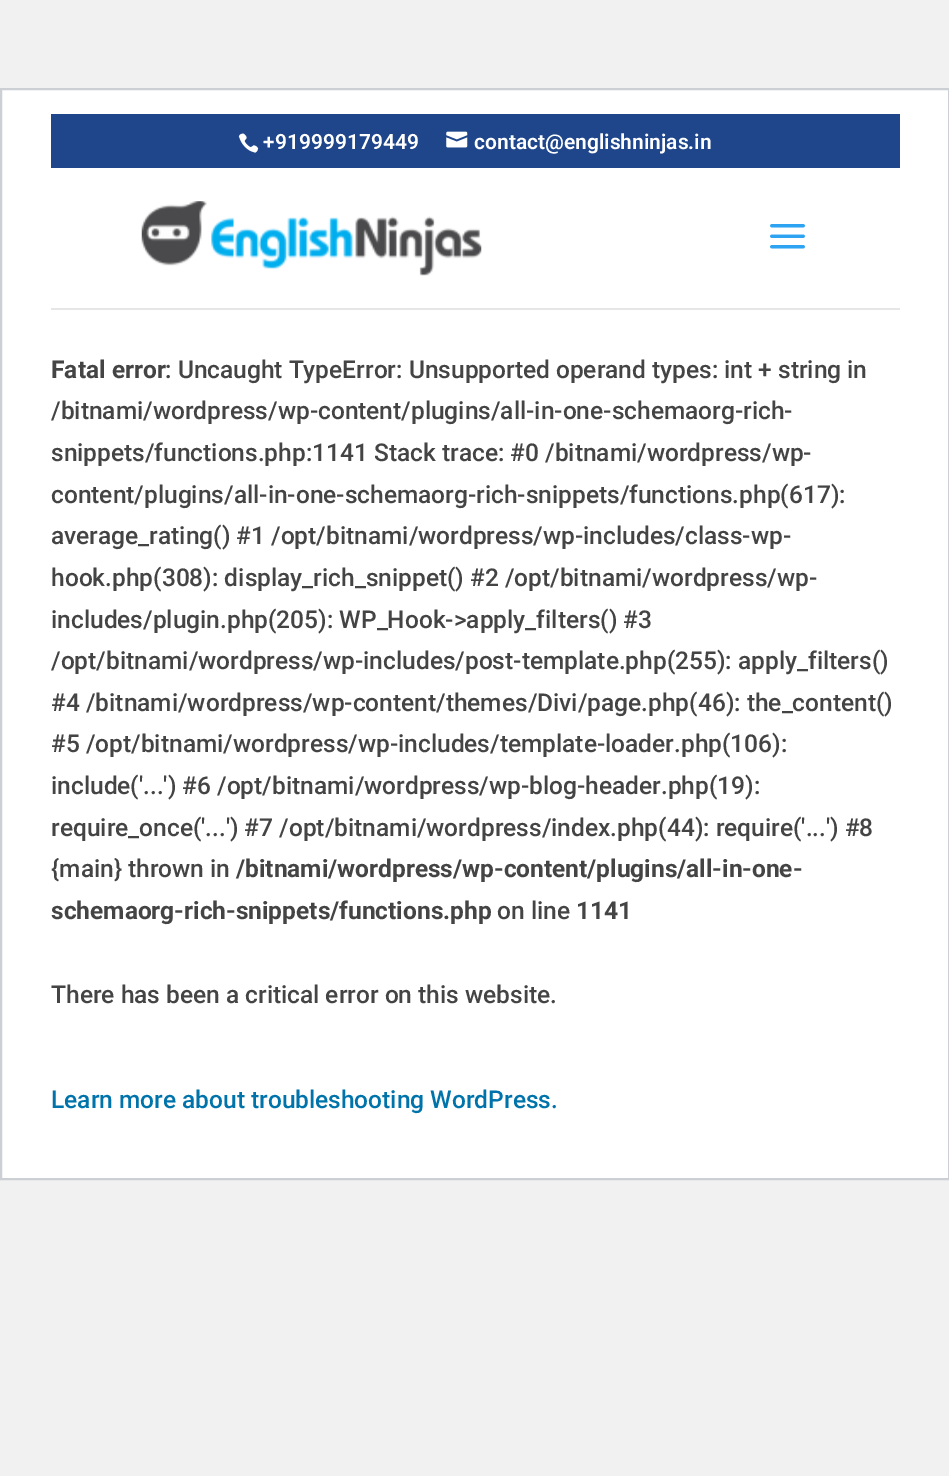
%!PS-Adobe-3.0
%%BoundingBox: 0 0 949 1476
%%LanguageLevel: 3
%%Pages: 1
%%EndComments
%%BeginProlog
/setink { dup -16 bitshift 255 div exch dup -8 bitshift 255 and 255 div exch 255 and 255 div setrgbcolor } def
/usefont { [ exch dup neg 0 0 3 -1 roll 0 0 ] selectfont } def
/drawimage { 5 dict begin { /h /w /y /x /name } { exch def } forall
  gsave x y translate w h scale
  w h 8 [w 0 0 h 0 0] name (r) file false 3 colorimage grestore end } def
%%EndProlog
%%BeginSetup
<< /PageSize [949 1476] >> setpagedevice
%%EndSetup
%%Page: 1 1
0 1476 translate 1 -1 scale
4 setmiterlimit
16#F1F1F1 setink
0 0 949 1476 rectfill
16#FFFFFF setink
1 89 moveto 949 89 lineto 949 1179 lineto 1 1179 lineto closepath gsave fill grestore
16#CCD0D4 setink
2 setlinewidth
stroke
16#1F468B setink
51 114 849 54 rectfill
(img1.raw) 238 133 21 20 drawimage
/Roboto-SemiBold 21 usefont
16#FFFFFF setink
263 149 moveto (+919999179449) show
(img2.raw) 446 131 22 17 drawimage
474 149 moveto (contact@englishninjas.in) show
16#E6E6E6 setink
51 308 moveto 51 310 lineto 900 310 lineto 900 170 lineto 900 308 lineto closepath fill
(img3.raw) 141 201 341 75 drawimage
(img4.raw) 770 224 35 25 drawimage
/Roboto-Bold 24.5 usefont
16#444444 setink
51 378 moveto (Fatal error) show
/Roboto-Medium 24.5 usefont
[
    [(: Uncaught TypeError: Unsupported operand types: int + string in) 165 378]
    [(/bitnami/wordpress/wp-content/plugins/all-in-one-schemaorg-rich-) 51 419]
    [(snippets/functions.php:1141 Stack trace: #0 /bitnami/wordpress/wp-) 51 461]
    [(content/plugins/all-in-one-schemaorg-rich-snippets/functions.php\(617\):) 51 503]
    [(average_rating\(\) #1 /opt/bitnami/wordpress/wp-includes/class-wp-) 51 544]
    [(hook.php\(308\): display_rich_snippet\(\) #2 /opt/bitnami/wordpress/wp-) 51 586]
    [(includes/plugin.php\(205\): WP_Hook->apply_filters\(\) #3) 51 628]
    [(/opt/bitnami/wordpress/wp-includes/post-template.php\(255\): apply_filters\(\)) 51 669]
    [(#4 /bitnami/wordpress/wp-content/themes/Divi/page.php\(46\): the_content\(\)) 51 711]
    [(#5 /opt/bitnami/wordpress/wp-includes/template-loader.php\(106\):) 51 752]
    [(include\('...'\) #6 /opt/bitnami/wordpress/wp-blog-header.php\(19\):) 51 794]
    [(require_once\('...'\) #7 /opt/bitnami/wordpress/index.php\(44\): require\('...'\) #8) 51 836]
    [({main} thrown in) 51 877]
] { aload pop moveto show } forall
/Roboto-Bold 24.5 usefont
236 877 moveto (/bitnami/wordpress/wp-content/plugins/all-in-one-) show
51 919 moveto (schemaorg-rich-snippets/functions.php) show
/Roboto-Medium 24.5 usefont
497 919 moveto (on line) show
/Roboto-Bold 24.5 usefont
576 919 moveto (1141) show
/Roboto-Medium 24.5 usefont
51 1003 moveto (There has been a critical error on this website.) show
16#0073AA setink
51 1108 moveto (Learn more about troubleshooting WordPress.) show
showpage
%%EOF
